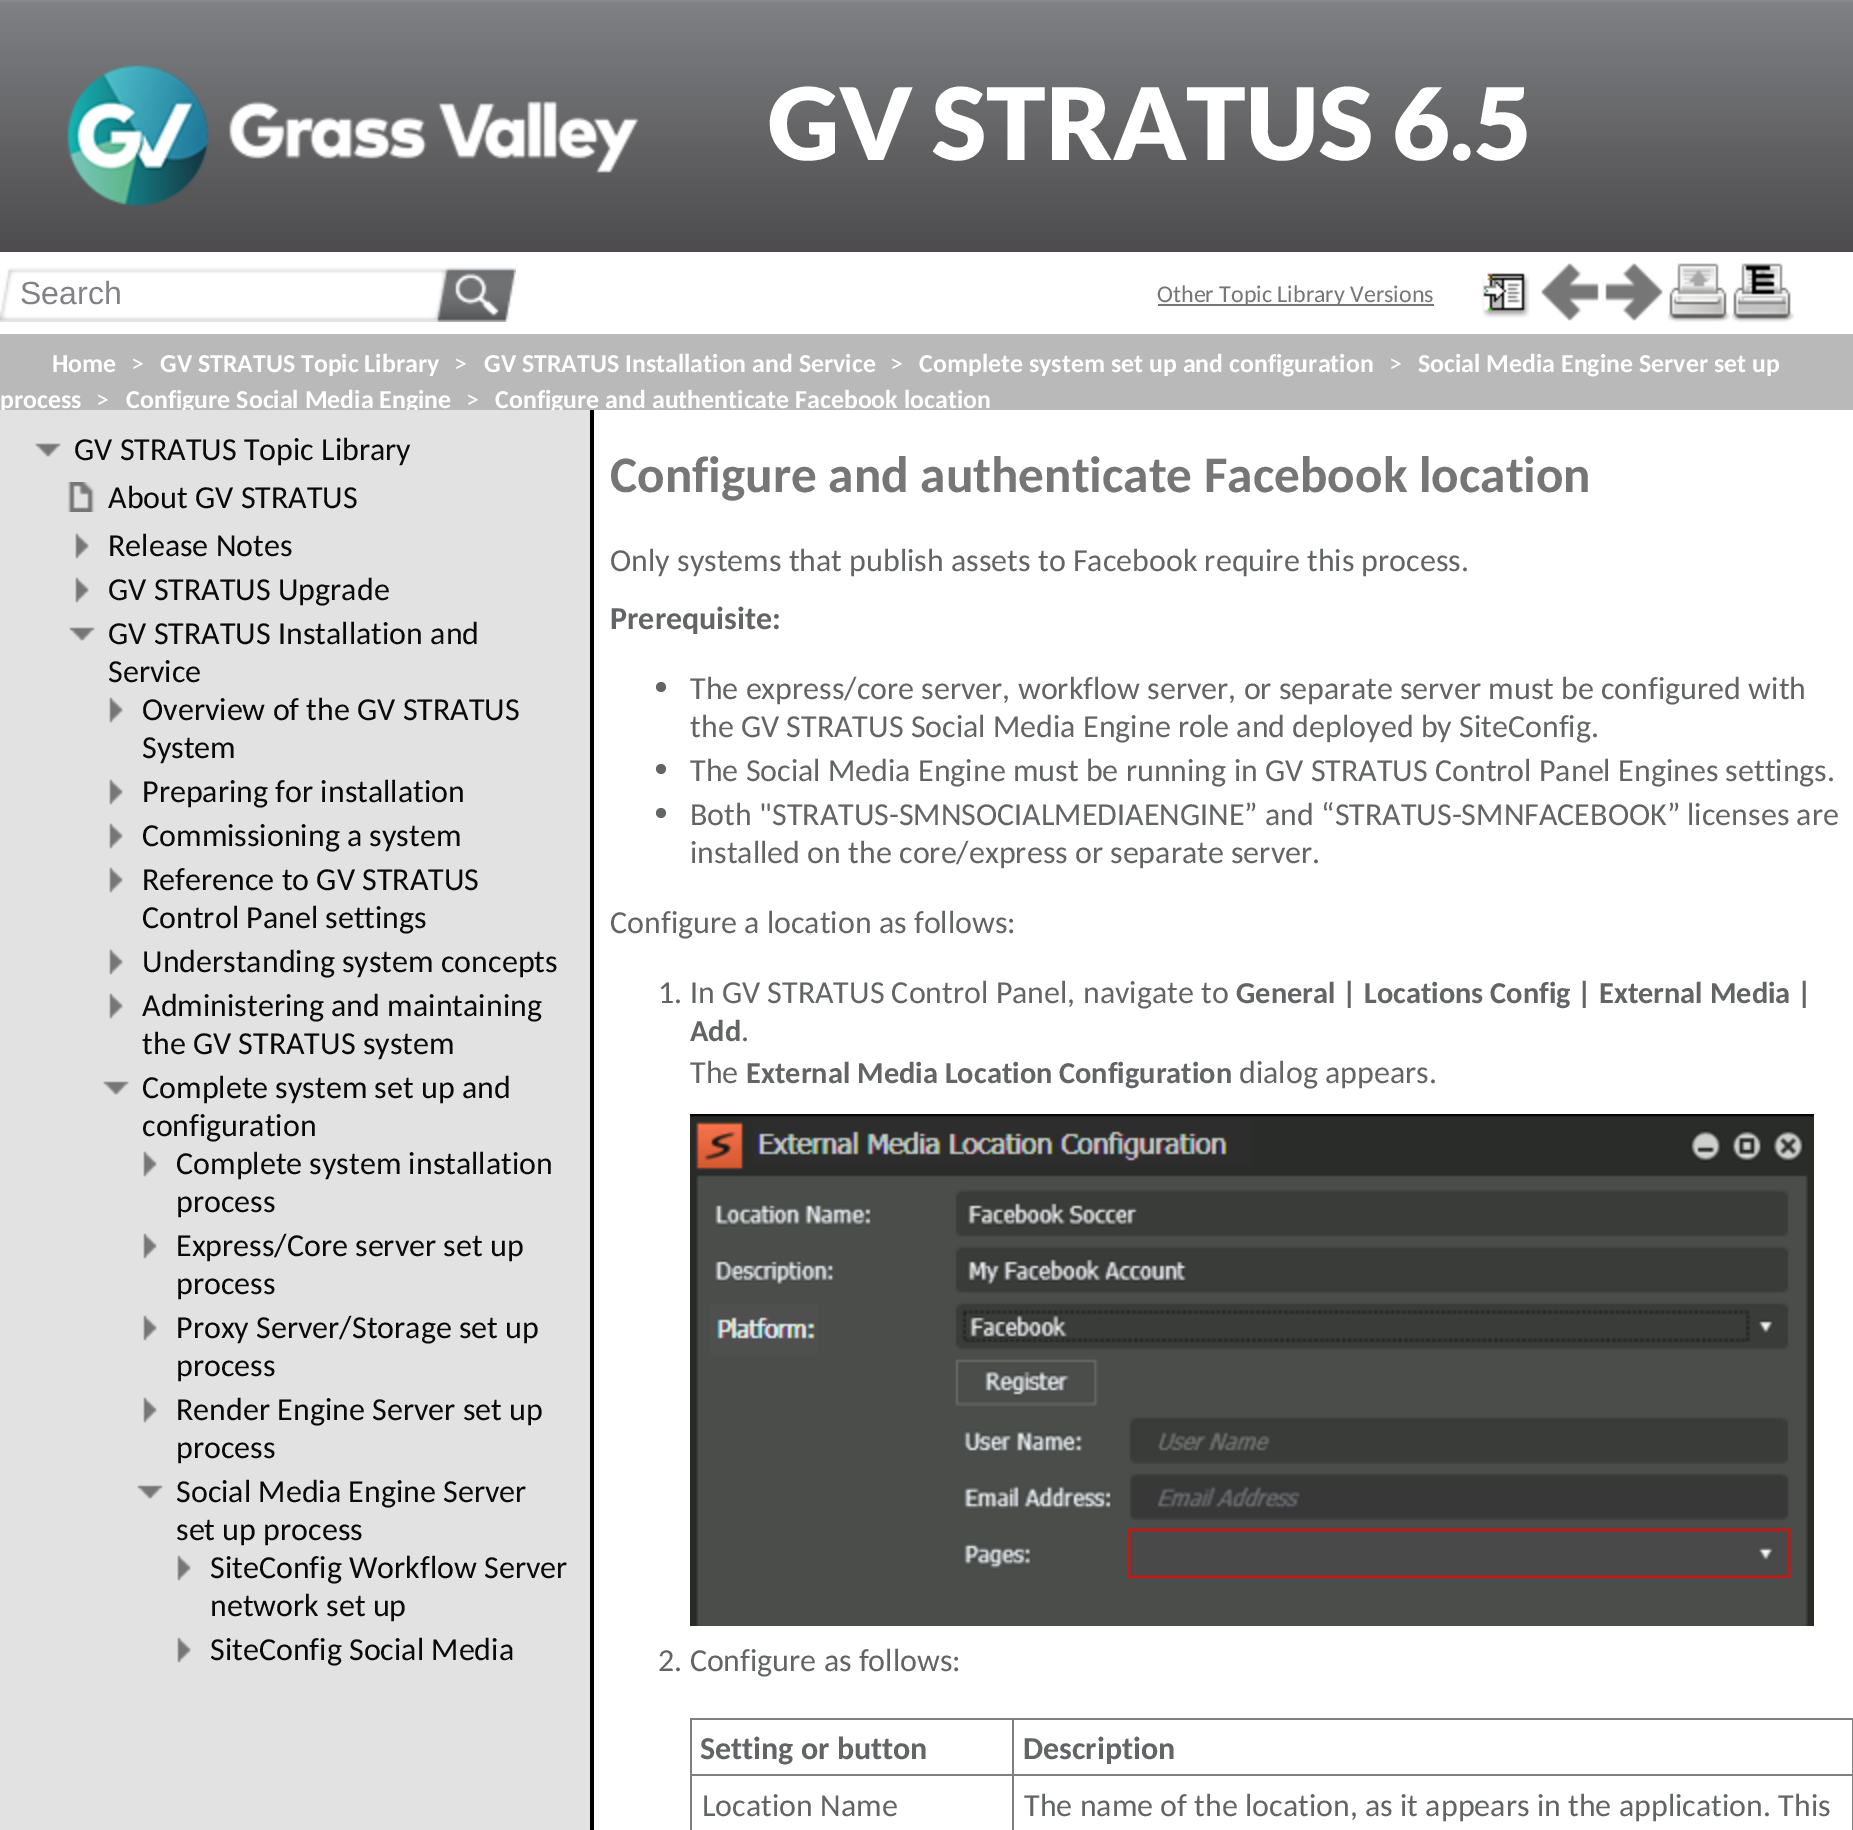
%!PS-Adobe-3.0
%%BoundingBox: 0 0 1853 1830
%%LanguageLevel: 3
%%Pages: 1
%%EndComments
%%BeginProlog
/setink { dup -16 bitshift 255 div exch dup -8 bitshift 255 and 255 div exch 255 and 255 div setrgbcolor } def
/usefont { [ exch dup neg 0 0 3 -1 roll 0 0 ] selectfont } def
/disc { newpath 0 360 arc closepath } def
/drawimage { 5 dict begin { /h /w /y /x /name } { exch def } forall
  gsave x y translate w h scale
  w h 8 [w 0 0 h 0 0] name (r) file false 3 colorimage grestore end } def
%%EndProlog
%%BeginSetup
<< /PageSize [1853 1830] >> setpagedevice
%%EndSetup
%%Page: 1 1
0 1830 translate 1 -1 scale
4 setmiterlimit
16#FFFFFF setink
0 0 1853 1830 rectfill
(img1.raw) 0 0 1853 252 drawimage
(img2.raw) 67 65 572 142 drawimage
/Lato-Black 100 usefont
768 160 moveto (GV STRATUS 6.5) show
(img3.raw) 0 267 20 55 drawimage
(img4.raw) 20 267 414 55 drawimage
/LiberationSans-Regular 32 usefont
16#808285 setink
20 304 moveto (Search) show
(img5.raw) 434 267 82 55 drawimage
16#767676 setink
1158 304 276 2 rectfill
/Carlito-Regular 24 usefont
1157 302 moveto (Other Topic Library Versions) show
(img6.raw) 1482 273 48 45 drawimage
(img7.raw) 1541 263 58 58 drawimage
(img8.raw) 1605 263 58 58 drawimage
(img9.raw) 1667 263 63 59 drawimage
(img10.raw) 1731 263 63 60 drawimage
16#B9B9B9 setink
0 334 1853 76 rectfill
/Carlito-Bold 25.9 usefont
16#FFFFFF setink
52 372 moveto (Home) show
/Carlito-Regular 25.9 usefont
131 372 moveto (>) show
/Carlito-Bold 25.9 usefont
160 372 moveto (GV STRATUS Topic Library) show
/Carlito-Regular 25.9 usefont
454 372 moveto (>) show
/Carlito-Bold 25.9 usefont
484 372 moveto (GV STRATUS Installation and Service) show
/Carlito-Regular 25.9 usefont
890 372 moveto (>) show
/Carlito-Bold 25.9 usefont
919 372 moveto (Complete system set up and configuration) show
/Carlito-Regular 25.9 usefont
1389 372 moveto (>) show
/Carlito-Bold 25.9 usefont
1418 372 moveto (Social Media Engine Server set up) show
0 408 moveto (process) show
/Carlito-Regular 25.9 usefont
96 408 moveto (>) show
/Carlito-Bold 25.9 usefont
126 408 moveto (Configure Social Media Engine) show
/Carlito-Regular 25.9 usefont
466 408 moveto (>) show
/Carlito-Bold 25.9 usefont
495 408 moveto (Configure and authenticate Facebook location) show
/Carlito-Bold 51.25 usefont
16#767676 setink
610 492 moveto (Configure and authenticate Facebook location) show
/Carlito-Regular 32 usefont
16#636466 setink
610 571 moveto (Only systems that publish assets to Facebook require this process.) show
/Carlito-Bold 32 usefont
610 629 moveto (Prerequisite:) show
661 687 5 disc fill
/Carlito-Regular 32 usefont
690 699 moveto (The express/core server, workflow server, or separate server must be configured with) show
690 737 moveto (the GV STRATUS Social Media Engine role and deployed by SiteConfig.) show
661 769 5 disc fill
690 781 moveto (The Social Media Engine must be running in GV STRATUS Control Panel Engines settings.) show
661 813 5 disc fill
[
    [(Both "STRATUS-SMNSOCIALMEDIAENGINE” and “STRATUS-SMNFACEBOOK” licenses are) 690 825]
    [(installed on the core/express or separate server.) 690 863]
    [(Configure a location as follows:) 610 933]
    [(1. In GV STRATUS Control Panel, navigate to) 658 1003]
] { aload pop moveto show } forall
/Carlito-Bold 30.4 usefont
1236 1003 moveto (General | Locations Config | External Media |) show
690 1041 moveto (Add) show
/Carlito-Regular 32 usefont
741 1041 moveto (.) show
690 1083 moveto (The) show
/Carlito-Bold 30.4 usefont
746 1083 moveto (External Media Location Configuration) show
/Carlito-Regular 32 usefont
1239 1083 moveto (dialog appears.) show
(img11.raw) 690 1114 1124 512 drawimage
658 1671 moveto (2. Configure as follows:) show
[
    [690 1718 1163 2 16#808080]
    [1852 1718 1 112 16#808080]
    [690 1718 2 112 16#808080]
] { aload pop setink rectfill } forall
/Carlito-Bold 32 usefont
16#636466 setink
700 1759 moveto (Setting or button) show
[
    [1012 1774 841 2 16#808080]
    [1012 1774 2 56 16#808080]
    [690 1774 324 2 16#808080]
    [1012 1718 2 58 16#808080]
] { aload pop setink rectfill } forall
16#636466 setink
1023 1759 moveto (Description) show
/Carlito-Regular 32 usefont
702 1816 moveto (Location Name) show
1024 1816 moveto (The name of the location, as it appears in the application. This) show
16#E2E2E2 setink
0 410 590 1420 rectfill
(img12.raw) 35 443 26 14 drawimage
16#0A0A0A setink
74 460 moveto (GV STRATUS Topic Library) show
(img13.raw) 67 482 28 30 drawimage
108 508 moveto (About GV STRATUS) show
(img14.raw) 75 533 14 26 drawimage
108 556 moveto (Release Notes) show
(img14.raw) 75 577 14 26 drawimage
108 600 moveto (GV STRATUS Upgrade) show
(img12.raw) 69 627 26 14 drawimage
108 644 moveto (GV STRATUS Installation and) show
108 682 moveto (Service) show
(img14.raw) 109 697 14 26 drawimage
142 720 moveto (Overview of the GV STRATUS) show
142 758 moveto (System) show
(img14.raw) 109 779 14 26 drawimage
142 802 moveto (Preparing for installation) show
(img14.raw) 109 823 14 26 drawimage
142 846 moveto (Commissioning a system) show
(img14.raw) 109 867 14 26 drawimage
142 890 moveto (Reference to GV STRATUS) show
142 928 moveto (Control Panel settings) show
(img14.raw) 109 949 14 26 drawimage
142 972 moveto (Understanding system concepts) show
(img14.raw) 109 993 14 26 drawimage
142 1016 moveto (Administering and maintaining) show
142 1054 moveto (the GV STRATUS system) show
(img12.raw) 103 1081 26 14 drawimage
142 1098 moveto (Complete system set up and) show
142 1136 moveto (configuration) show
(img14.raw) 143 1151 14 26 drawimage
176 1174 moveto (Complete system installation) show
176 1212 moveto (process) show
(img14.raw) 143 1233 14 26 drawimage
176 1256 moveto (Express/Core server set up) show
176 1294 moveto (process) show
(img14.raw) 143 1315 14 26 drawimage
176 1338 moveto (Proxy Server/Storage set up) show
176 1376 moveto (process) show
(img14.raw) 143 1397 14 26 drawimage
176 1420 moveto (Render Engine Server set up) show
176 1458 moveto (process) show
(img12.raw) 137 1485 26 14 drawimage
176 1502 moveto (Social Media Engine Server) show
176 1540 moveto (set up process) show
(img14.raw) 177 1555 14 26 drawimage
210 1578 moveto (SiteConfig Workflow Server) show
210 1616 moveto (network set up) show
(img14.raw) 177 1637 14 26 drawimage
210 1660 moveto (SiteConfig Social Media) show
16#000000 setink
590 410 4 1420 rectfill
showpage
%%EOF
